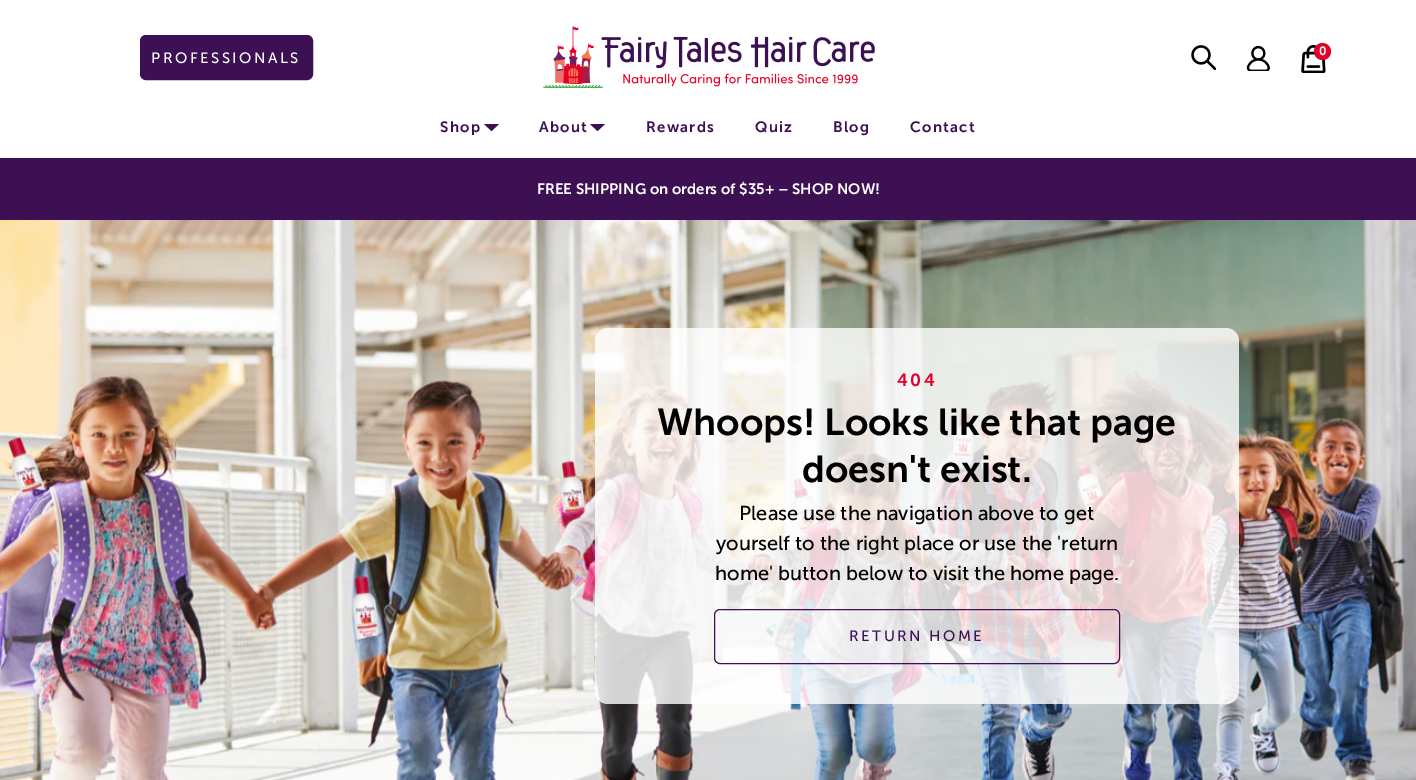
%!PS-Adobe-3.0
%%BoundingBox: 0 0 1416 780
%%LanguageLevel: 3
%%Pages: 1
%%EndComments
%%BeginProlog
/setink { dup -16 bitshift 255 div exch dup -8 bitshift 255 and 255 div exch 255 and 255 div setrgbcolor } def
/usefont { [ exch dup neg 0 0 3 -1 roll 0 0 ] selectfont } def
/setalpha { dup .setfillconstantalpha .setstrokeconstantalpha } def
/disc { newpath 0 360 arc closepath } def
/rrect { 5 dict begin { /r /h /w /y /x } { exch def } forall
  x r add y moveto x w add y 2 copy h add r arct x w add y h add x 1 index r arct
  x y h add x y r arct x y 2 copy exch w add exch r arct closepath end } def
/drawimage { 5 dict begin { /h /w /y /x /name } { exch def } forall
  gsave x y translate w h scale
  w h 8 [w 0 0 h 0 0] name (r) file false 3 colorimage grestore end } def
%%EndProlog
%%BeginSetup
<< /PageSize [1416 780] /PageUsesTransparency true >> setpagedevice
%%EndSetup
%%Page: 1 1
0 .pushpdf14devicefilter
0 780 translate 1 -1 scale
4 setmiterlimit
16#FFFFFF setink
0 0 1416 780 rectfill
(img1.raw) 543 26 332 62 drawimage
(img2.raw) 1191 45 25 26 drawimage
(img3.raw) 1246 45 24 26 drawimage
(img4.raw) 1301 45 25 28 drawimage
16#E4002B setink
1322.5 51.5 8.5 disc fill
/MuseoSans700-SemiBold 12 usefont
16#FFFFFF setink
1319 55 moveto (0) show
16#3C1053 setink
140.5 35.5 172 44 5.5 rrect gsave fill grestore
stroke
/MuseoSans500-Regular 15 usefont
16#FFFFFF setink
151 63 moveto 2.5 0 (PROFESSIONALS) ashow
/MuseoSans700-SemiBold 15 usefont
16#3C1053 setink
440 132 moveto 1.25 0 (Shop) ashow
484 124 moveto 491.5 131 lineto 499 124 lineto closepath eofill
539 132 moveto 1.25 0 (About) ashow
590 124 moveto 597.5 131 lineto 605 124 lineto closepath eofill
646 132 moveto 1.25 0 (Rewards) ashow
755 132 moveto 1.25 0 (Quiz) ashow
833 132 moveto 1.25 0 (Blog) ashow
910 132 moveto 1.25 0 (Contact) ashow
0 158 1416 62 rectfill
16#FFFFFF setink
537 194 moveto (FREE SHIPPING on orders of $35+ – SHOP NOW!) show
(img5.raw) 0 220 1416 560 drawimage
0.8 setalpha
595 328 644 376 13 rrect fill
/MuseoSans700-SemiBold 17.5 usefont
1 setalpha
16#E4002B setink
897 386 moveto 2.5 0 (404) ashow
/MuseoSans700-SemiBold 37.5 usefont
16#000000 setink
657 435 moveto (Whoops! Looks like that page) show
802 482 moveto (doesn't exist.) show
/MuseoSans500-Regular 20 usefont
[
    [(Please use the navigation above to get) 739 520]
    [(yourself to the right place or use the 'return) 716 550]
    [(home' button below to visit the home page.) 715 580]
] { aload pop moveto show } forall
16#3C1053 setink
714.5 609.5 405 54 5.5 rrect stroke
/MuseoSans500-Regular 15 usefont
849 641 moveto 2.5 0 (RETURN HOME) ashow
.poppdf14devicefilter showpage
%%EOF
